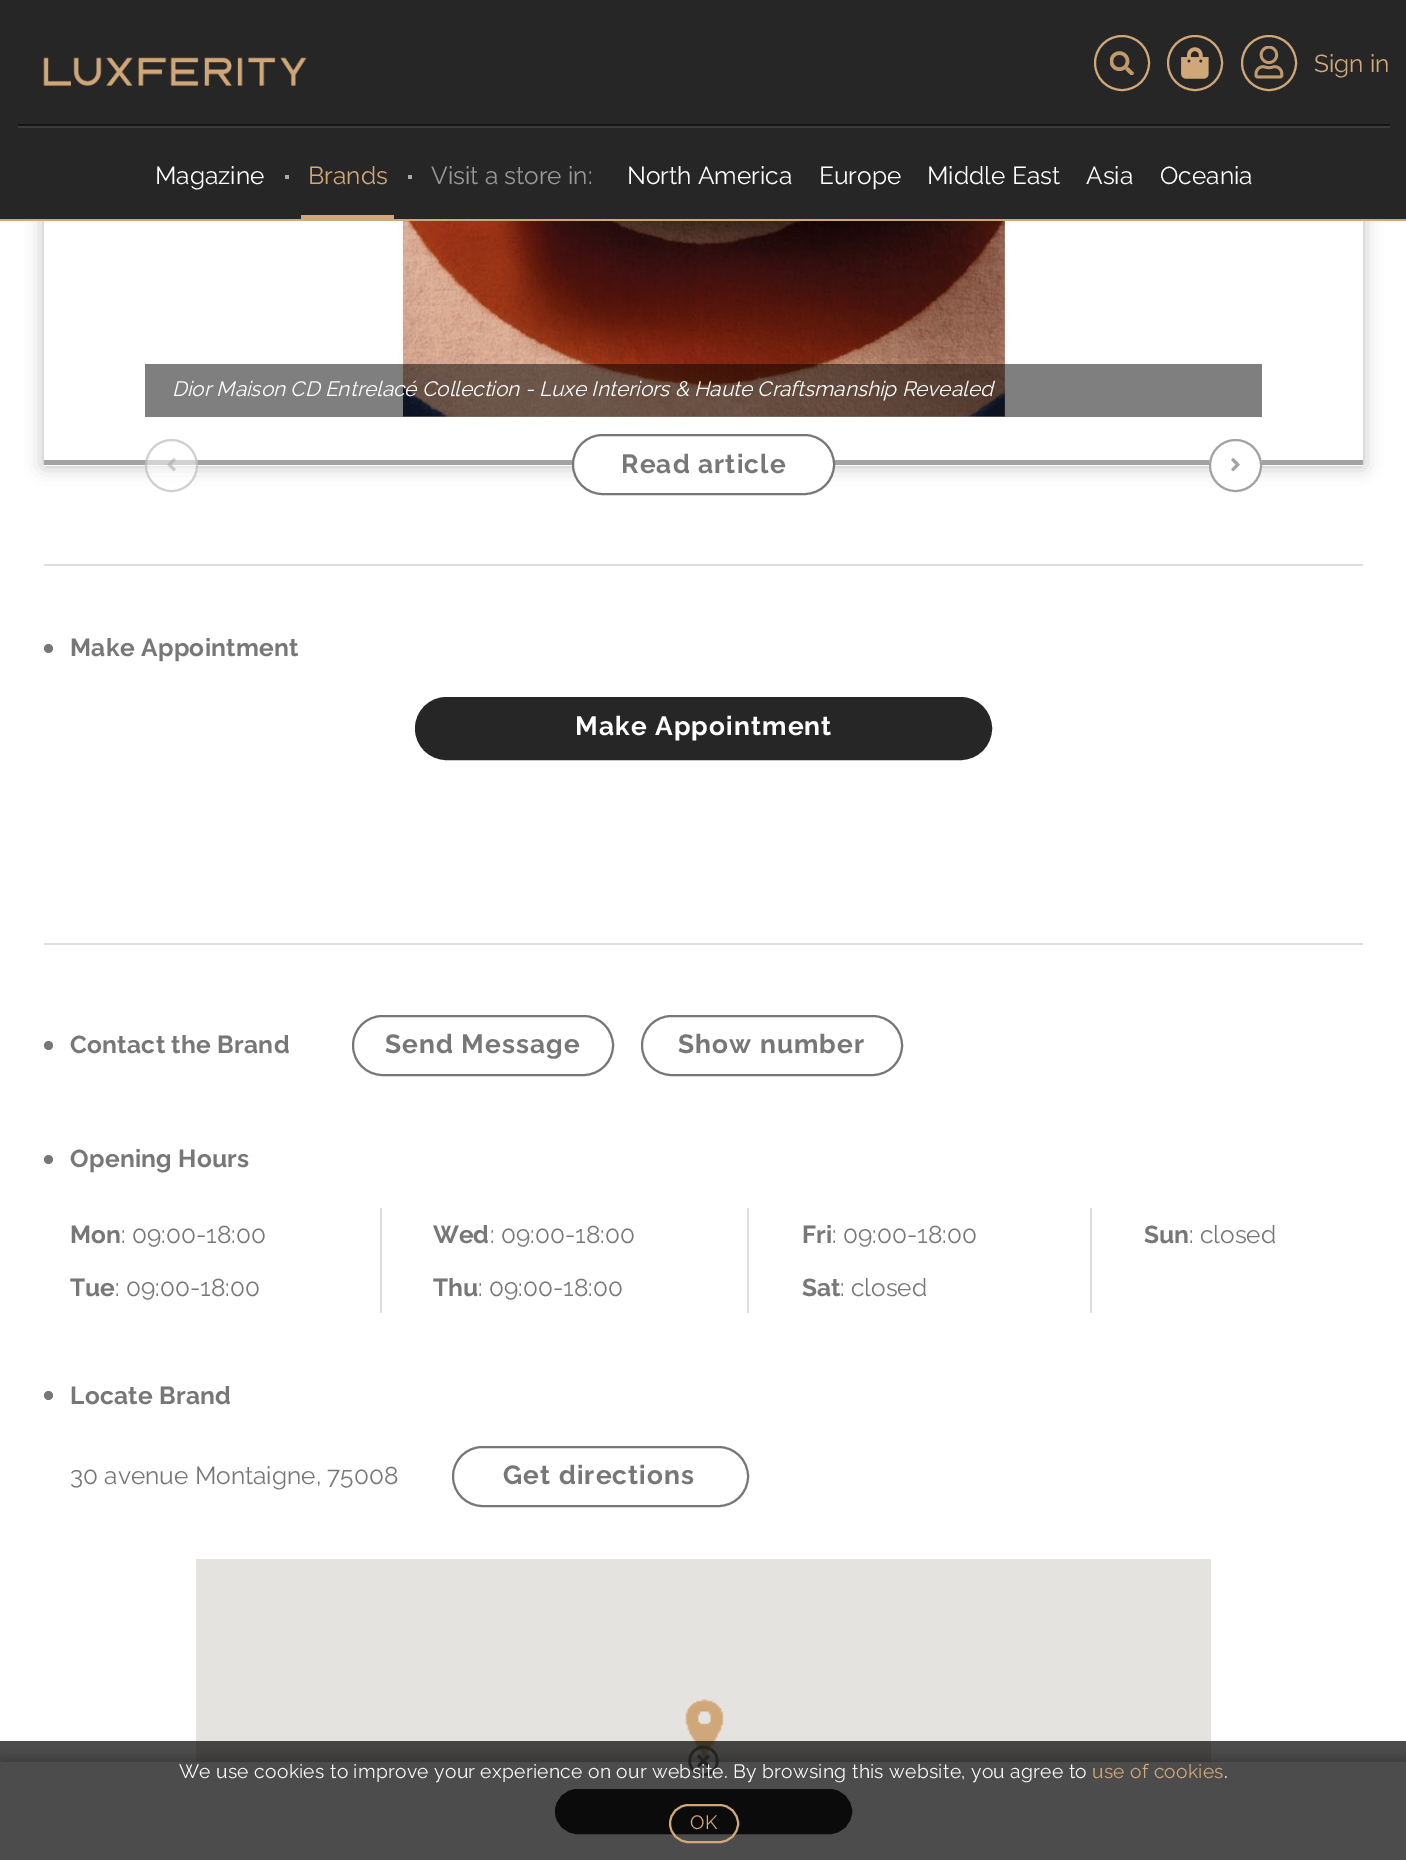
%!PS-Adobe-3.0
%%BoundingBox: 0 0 1406 1860
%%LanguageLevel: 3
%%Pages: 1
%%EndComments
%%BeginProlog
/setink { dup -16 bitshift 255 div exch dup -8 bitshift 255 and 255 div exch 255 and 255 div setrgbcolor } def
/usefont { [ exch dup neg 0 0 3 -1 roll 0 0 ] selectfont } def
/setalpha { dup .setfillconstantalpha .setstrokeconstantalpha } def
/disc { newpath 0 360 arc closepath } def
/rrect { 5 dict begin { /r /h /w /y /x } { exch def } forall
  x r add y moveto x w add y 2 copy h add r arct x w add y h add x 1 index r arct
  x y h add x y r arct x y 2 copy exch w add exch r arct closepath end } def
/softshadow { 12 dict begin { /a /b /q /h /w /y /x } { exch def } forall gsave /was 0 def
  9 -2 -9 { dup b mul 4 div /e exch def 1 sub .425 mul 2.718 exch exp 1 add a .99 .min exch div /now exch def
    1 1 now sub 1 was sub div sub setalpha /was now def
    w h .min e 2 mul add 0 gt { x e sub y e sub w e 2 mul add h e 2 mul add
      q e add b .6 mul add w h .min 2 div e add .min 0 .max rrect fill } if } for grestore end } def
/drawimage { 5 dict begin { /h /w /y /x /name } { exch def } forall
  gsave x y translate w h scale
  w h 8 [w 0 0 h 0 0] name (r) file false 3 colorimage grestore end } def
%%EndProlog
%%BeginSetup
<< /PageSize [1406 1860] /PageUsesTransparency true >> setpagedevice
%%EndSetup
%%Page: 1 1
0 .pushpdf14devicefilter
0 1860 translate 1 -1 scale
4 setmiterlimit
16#FFFFFF setink
0 0 1406 1860 rectfill
16#B9B9B9 setink
44 -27 1319 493 0 9 1 softshadow
16#262626 setink
0 0 1406 219 rectfill
16#D0A778 setink
0 219 1406 2 rectfill
(img1.raw) 43 57 264 29 drawimage
2 setlinewidth
1122 63 27 disc stroke
(img2.raw) 1110 51 24 24 drawimage
1195 63 27 disc stroke
(img3.raw) 1181 47 28 32 drawimage
1269 63 27 disc stroke
(img4.raw) 1254 46 30 33 drawimage
/Raleway-Regular 24.5 usefont
1314 72 moveto (Sign in) show
16#151515 setink
18 124 moveto 18 126 lineto 1390 126 lineto 1390 191 lineto 1390 124 lineto closepath fill
16#3B3B3B setink
18 126 1372 2 rectfill
16#FFFFFF setink
155 184 moveto (Magazine) show
16#AAAAAA setink
285 175 4 4 rectfill
16#D0A778 setink
308 184 moveto (Brands) show
301 215 93 4 rectfill
16#AAAAAA setink
408 175 4 4 rectfill
16#999999 setink
431 184 moveto (Visit a store in:) show
16#FFFFFF setink
[
    [(North America) 627 184]
    [(Europe) 819 184]
    [(Middle East) 927 184]
    [(Asia) 1086 184]
    [(Oceania) 1160 184]
] { aload pop moveto show } forall
44 221 1319 245 rectfill
16#A2A2A2 setink
44 460 1319 5 rectfill
(img5.raw) 398 221 611 196 drawimage
0.5 setalpha
16#000000 setink
145 364 1117 53 rectfill
/Raleway-Italic 20.8 usefont
1 setalpha
16#FFFFFF setink
172 396 moveto (Dior Maison CD Entrelacé Collection - Luxe Interiors & Haute Craftsmanship Revealed) show
0.5 setalpha
171.5 465.5 26.5 disc fill
1 setalpha
(img6.raw) 167 458 9 13 drawimage
0.5 setalpha
16#A2A2A2 setink
171.5 465.5 25.5 disc stroke
1 setalpha
16#FFFFFF setink
573 435 261 59 29.5 rrect gsave fill grestore
16#777777 setink
stroke
/Raleway-Bold 26.25 usefont
621 473 moveto 1.1 0 (Read article) ashow
16#FFFFFF setink
1235.5 465.5 26.5 disc fill
(img7.raw) 1231 458 9 14 drawimage
16#A2A2A2 setink
1235.5 465.5 25.5 disc stroke
16#DDDDDD setink
44 564 1319 2 rectfill
16#777777 setink
48.5 648.5 4.5 disc fill
/Raleway-Bold 24.5 usefont
70 656 moveto 0.3 0 (Make Appointment) ashow
16#262626 setink
416 698 575 61 30.5 rrect gsave fill grestore
stroke
/Raleway-Bold 26.25 usefont
16#FFFFFF setink
575 735 moveto 1.1 0 (Make Appointment) ashow
16#DDDDDD setink
44 943 1319 2 rectfill
16#777777 setink
48.5 1045.5 4.5 disc fill
/Raleway-Bold 24.5 usefont
70 1053 moveto 0.3 0 (Contact the Brand) ashow
353 1016 260 59 29.5 rrect stroke
/Raleway-Bold 26.25 usefont
385 1053 moveto 1.1 0 (Send Message) ashow
642 1016 260 59 29.5 rrect stroke
678 1053 moveto 1.1 0 (Show number) ashow
48.5 1159.5 4.5 disc fill
/Raleway-Bold 24.5 usefont
70 1167 moveto 0.3 0 (Opening Hours) ashow
16#DDDDDD setink
380 1208 2 105 rectfill
16#777777 setink
70 1243 moveto (Mon) show
/Raleway-Regular 24.5 usefont
121 1243 moveto (: 09:00-18:00) show
16#DDDDDD setink
747 1208 2 105 rectfill
/Raleway-Bold 24.5 usefont
16#777777 setink
433 1243 moveto (Wed) show
/Raleway-Regular 24.5 usefont
490 1243 moveto (: 09:00-18:00) show
16#DDDDDD setink
1090 1208 2 105 rectfill
/Raleway-Bold 24.5 usefont
16#777777 setink
802 1243 moveto (Fri) show
/Raleway-Regular 24.5 usefont
832 1243 moveto (: 09:00-18:00) show
/Raleway-Bold 24.5 usefont
1144 1243 moveto (Sun) show
/Raleway-Regular 24.5 usefont
1189 1243 moveto (: closed) show
/Raleway-Bold 24.5 usefont
70 1296 moveto (Tue) show
/Raleway-Regular 24.5 usefont
115 1296 moveto (: 09:00-18:00) show
/Raleway-Bold 24.5 usefont
433 1296 moveto (Thu) show
/Raleway-Regular 24.5 usefont
478 1296 moveto (: 09:00-18:00) show
/Raleway-Bold 24.5 usefont
802 1296 moveto (Sat) show
/Raleway-Regular 24.5 usefont
840 1296 moveto (: closed) show
48.5 1395.5 4.5 disc fill
/Raleway-Bold 24.5 usefont
70 1404 moveto 0.3 0 (Locate Brand) ashow
/Raleway-Regular 24.5 usefont
70 1484 moveto (30 avenue Montaigne, 75008) show
453 1447 295 59 29.5 rrect stroke
/Raleway-Bold 26.25 usefont
503 1484 moveto 1.1 0 (Get directions) ashow
16#E5E3DF setink
196 1559 1015 203 rectfill
(img8.raw) 685 1698 39 60 drawimage
16#000000 setink
0 1757 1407 98 0 5 0.2 softshadow
16#FFFFFF setink
0 1762 1406 98 rectfill
(img9.raw) 688 1745 31 31 drawimage
16#262626 setink
556 1790 295 43 21.5 rrect gsave fill grestore
stroke
0.7 setalpha
16#000000 setink
0 1741 1406 119 rectfill
/Raleway-Regular 19.25 usefont
1 setalpha
16#F8F8F8 setink
179 1778 moveto 0.28 0 (We use cookies to improve your experience on our website. By browsing this website, you agree to) ashow
16#D0A778 setink
1092 1778 moveto 0.28 0 (use of cookies) ashow
16#F8F8F8 setink
1224 1778 moveto 0.28 0 (.) ashow
16#D0A778 setink
670 1805 68 37 18.5 rrect stroke
690 1829 moveto 0.28 0 (OK) ashow
.poppdf14devicefilter showpage
%%EOF
